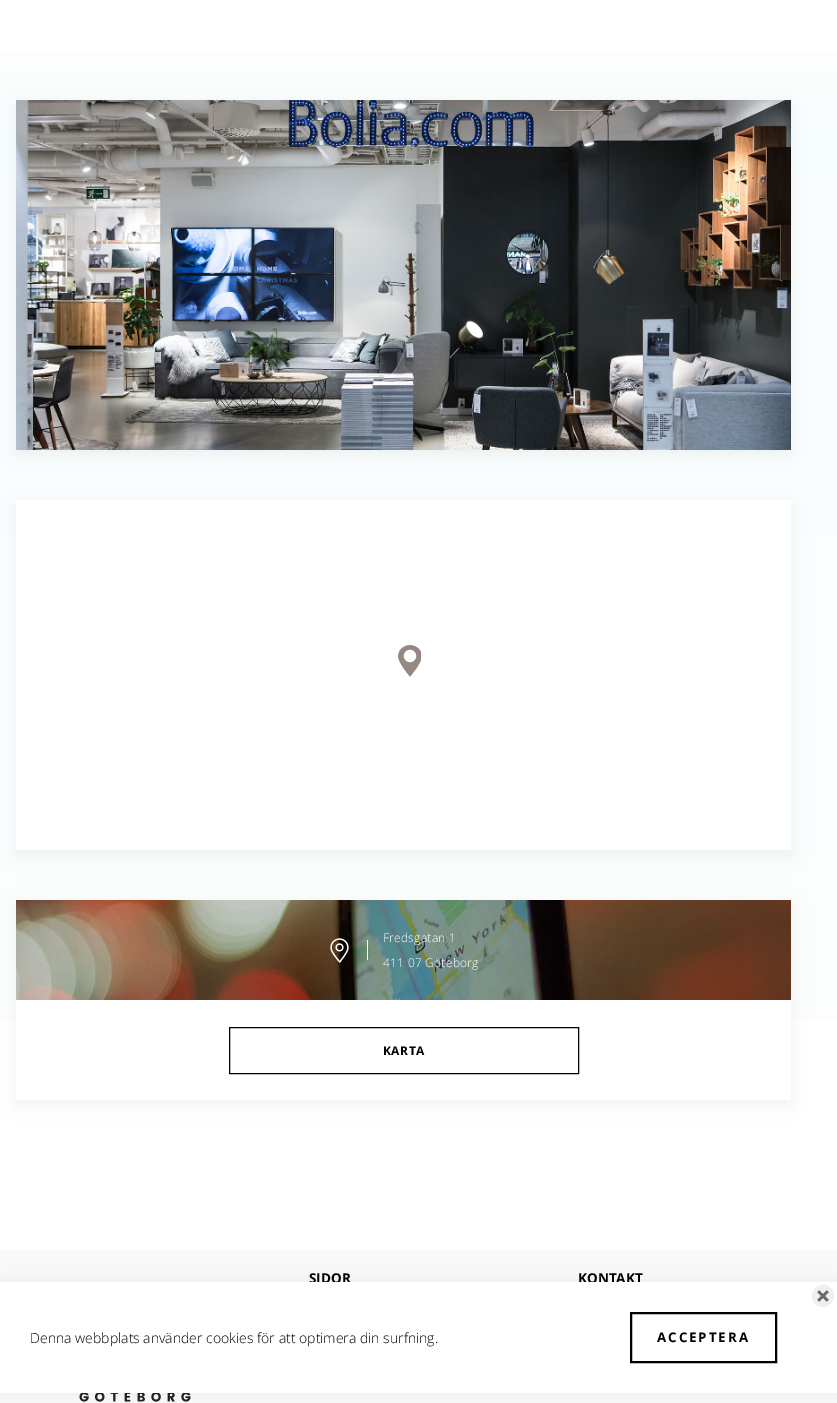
%!PS-Adobe-3.0
%%BoundingBox: 0 0 837 1403
%%LanguageLevel: 3
%%Pages: 1
%%EndComments
%%BeginProlog
/setink { dup -16 bitshift 255 div exch dup -8 bitshift 255 and 255 div exch 255 and 255 div setrgbcolor } def
/usefont { [ exch dup neg 0 0 3 -1 roll 0 0 ] selectfont } def
/setalpha { dup .setfillconstantalpha .setstrokeconstantalpha } def
/rrect { 5 dict begin { /r /h /w /y /x } { exch def } forall
  x r add y moveto x w add y 2 copy h add r arct x w add y h add x 1 index r arct
  x y h add x y r arct x y 2 copy exch w add exch r arct closepath end } def
/softshadow { 12 dict begin { /a /b /q /h /w /y /x } { exch def } forall gsave /was 0 def
  9 -2 -9 { dup b mul 4 div /e exch def 1 sub .425 mul 2.718 exch exp 1 add a .99 .min exch div /now exch def
    1 1 now sub 1 was sub div sub setalpha /was now def
    w h .min e 2 mul add 0 gt { x e sub y e sub w e 2 mul add h e 2 mul add
      q e add b .6 mul add w h .min 2 div e add .min 0 .max rrect fill } if } for grestore end } def
/drawimage { 5 dict begin { /h /w /y /x /name } { exch def } forall
  gsave x y translate w h scale
  w h 8 [w 0 0 h 0 0] name (r) file false 3 colorimage grestore end } def
%%EndProlog
%%BeginSetup
<< /PageSize [837 1403] /PageUsesTransparency true >> setpagedevice
%%EndSetup
%%Page: 1 1
0 .pushpdf14devicefilter
0 1403 translate 1 -1 scale
4 setmiterlimit
16#FFFFFF setink
0 0 837 1403 rectfill
gsave 0 53 moveto 837 53 lineto 837 1019 lineto 0 1019 lineto closepath clip newpath
<< /ShadingType 2 /ColorSpace /DeviceRGB /Coords [418 0 419 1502] /Extend [true true] /Function << /FunctionType 3 /Domain [0 1] /Functions [<< /FunctionType 2 /Domain [0 1] /C0 [1 1 1] /C1 [0.973 0.992 0.992] /N 1 >> << /FunctionType 2 /Domain [0 1] /C0 [0.973 0.992 0.992] /C1 [1 1 1] /N 1 >>] /Bounds [0.1] /Encode [0 1 0 1] >> >> shfill grestore
16#000000 setink
16 105 775 350 0 10 0.05 softshadow
(img1.raw) 16 100 775 350 drawimage
16 505 775 350 0 10 0.05 softshadow
16#FFFFFF setink
16 500 775 350 rectfill
(img2.raw) 398 645 23 32 drawimage
16#000000 setink
16 905 775 200 0 10 0.05 softshadow
16#FFFFFF setink
16 1000 775 100 rectfill
(img3.raw) 16 900 775 100 drawimage
(img4.raw) 330 938 19 25 drawimage
367 940 1 20 rectfill
/OpenSans-Light 12 usefont
383 942 moveto 0.25 0 (Fredsgatan 1) ashow
383 967 moveto 0.25 0 (411 07 Göteborg) ashow
16#000000 setink
229.5 1027.5 349 46 rectstroke
/OpenSans-Bold 12 usefont
383 1055 moveto 0.5 0 (KARTA) ashow
16#FAF9F9 setink
0 1250 837 153 rectfill
/OpenSans-Bold 13.5 usefont
16#000000 setink
309 1283 moveto (SIDOR) show
578 1283 moveto (KONTAKT) show
(img5.raw) 79 1393 112 9 drawimage
0 1282 837 111 0 10 0.06 softshadow
16#FFFFFF setink
0 1282 837 111 rectfill
16#EFEFEF setink
831 1288 moveto 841 1298.5 825.5 1314 815 1304 curveto 805 1293.5 820.5 1278 831 1288 curveto closepath fill
(img6.raw) 817 1290 12 12 drawimage
/OpenSans-Light 14 usefont
16#000000 setink
30 1343 moveto (Denna webbplats använder cookies för att optimera din surfning.) show
2 setlinewidth
631 1313 145 49 rectstroke
/OpenSans-Bold 13.25 usefont
657 1342 moveto 2 0 (ACCEPTERA) ashow
.poppdf14devicefilter showpage
%%EOF
